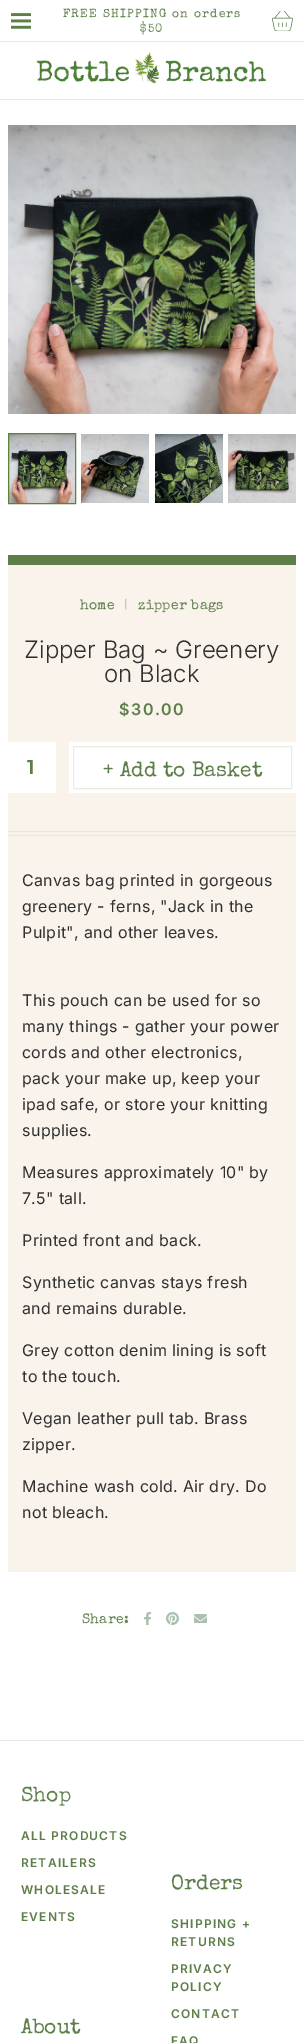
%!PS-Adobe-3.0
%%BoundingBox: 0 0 304 2043
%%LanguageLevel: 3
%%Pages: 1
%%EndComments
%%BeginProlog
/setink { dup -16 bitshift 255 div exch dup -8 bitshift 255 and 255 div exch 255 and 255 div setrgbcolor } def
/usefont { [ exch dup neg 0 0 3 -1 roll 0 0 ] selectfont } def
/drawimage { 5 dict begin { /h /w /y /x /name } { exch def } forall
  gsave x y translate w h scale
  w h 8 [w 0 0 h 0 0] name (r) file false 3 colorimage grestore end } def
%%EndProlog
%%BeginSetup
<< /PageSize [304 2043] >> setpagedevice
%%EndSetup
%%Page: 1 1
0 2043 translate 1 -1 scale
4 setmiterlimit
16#FFFFFF setink
0 0 304 2043 rectfill
16#E6EBE6 setink
0 99 304 1 rectfill
0 41 304 1 rectfill
(img1.raw) 11 13 20 16 drawimage
/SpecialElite-Regular 12 usefont
16#5D7E49 setink
63 17 moveto 1.2 0 (FREE SHIPPING on orders) ashow
140 32 moveto 1.2 0 ($50) ashow
(img2.raw) 272 11 21 20 drawimage
(img3.raw) 36 52 230 32 drawimage
(img4.raw) 8 125 288 289 drawimage
(img5.raw) 9 434 66 69 drawimage
16#578639 setink
8.5 433.5 67 70 rectstroke
(img6.raw) 81 434 68 69 drawimage
(img7.raw) 155 434 68 69 drawimage
(img8.raw) 228 434 68 69 drawimage
16#F9F3EB setink
8 565 288 1007 rectfill
16#5D7E49 setink
8 555 288 10 rectfill
/SpecialElite-Regular 14 usefont
80 609 moveto 0.25 0 (home) ashow
16#ABC0AE setink
124 609 moveto 0.25 0 (|) ashow
16#5D7E49 setink
138 609 moveto 0.25 0 (zipper bags) ashow
/Inter-Light 24 usefont
16#303030 setink
24 658 moveto (Zipper Bag ~ Greenery) show
104 682 moveto (on Black) show
/Inter-SemiBold 16 usefont
16#5D7E49 setink
119 715 moveto 1.5 0 ($30.00) ashow
16#ECE2DD setink
8 831 288 1 rectfill
16#FFFFFF setink
8 742 48 51 rectfill
/Montserrat-Thin 20 usefont
16#5D7E49 setink
27 774 moveto 2 0 (1) ashow
16#FFFFFF setink
69 742 227 51 rectfill
16#E6EBE6 setink
73.5 746.5 218 42 rectstroke
/SpecialElite-Regular 21 usefont
16#5D7E49 setink
103 776 moveto (+ Add to Basket) show
16#ECE2DD setink
8 835 288 1 rectfill
/Inter-Regular 16 usefont
16#303030 setink
22 886 moveto 0.3 0 (Canvas bag printed in gorgeous) ashow
22 912 moveto 0.3 0 (greenery - ferns, "Jack in the) ashow
22 938 moveto 0.3 0 (Pulpit", and other leaves.) ashow
22 1006 moveto 0.3 0 (This pouch can be used for so) ashow
22 1032 moveto 0.3 0 (many things - gather your power) ashow
22 1058 moveto 0.3 0 (cords and other electronics,) ashow
22 1084 moveto 0.3 0 (pack your make up, keep your) ashow
22 1110 moveto 0.3 0 (ipad safe, or store your knitting) ashow
22 1136 moveto 0.3 0 (supplies.) ashow
22 1178 moveto 0.3 0 (Measures approximately 10" by) ashow
22 1204 moveto 0.3 0 (7.5" tall.) ashow
22 1246 moveto 0.3 0 (Printed front and back.) ashow
22 1288 moveto 0.3 0 (Synthetic canvas stays fresh) ashow
22 1314 moveto 0.3 0 (and remains durable.) ashow
22 1356 moveto 0.3 0 (Grey cotton denim lining is soft) ashow
22 1382 moveto 0.3 0 (to the touch.) ashow
22 1424 moveto 0.3 0 (Vegan leather pull tab. Brass) ashow
22 1450 moveto 0.3 0 (zipper.) ashow
22 1492 moveto 0.3 0 (Machine wash cold. Air dry. Do) ashow
22 1518 moveto 0.3 0 (not bleach.) ashow
/SpecialElite-Regular 14 usefont
16#5D7E49 setink
82 1623 moveto 0.25 0 (Share:) ashow
(img9.raw) 144 1612 7 13 drawimage
(img10.raw) 166 1612 13 13 drawimage
(img11.raw) 194 1614 13 9 drawimage
16#E6EBE6 setink
0 1740 304 1 rectfill
/SpecialElite-Regular 21 usefont
16#5D7E49 setink
21 1801 moveto (Shop) show
/Inter-SemiBold 12 usefont
21 1840 moveto 1.2 0 (ALL PRODUCTS) ashow
21 1867 moveto 1.2 0 (RETAILERS) ashow
21 1894 moveto 1.2 0 (WHOLESALE) ashow
21 1921 moveto 1.2 0 (EVENTS) ashow
/SpecialElite-Regular 21 usefont
21 2033 moveto (About) show
171 1889 moveto (Orders) show
/Inter-SemiBold 12 usefont
171 1928 moveto 1.2 0 (SHIPPING +) ashow
171 1946 moveto 1.2 0 (RETURNS) ashow
171 1973 moveto 1.2 0 (PRIVACY) ashow
171 1991 moveto 1.2 0 (POLICY) ashow
171 2018 moveto 1.2 0 (CONTACT) ashow
171 2045 moveto 1.2 0 (FAQ) ashow
showpage
%%EOF
